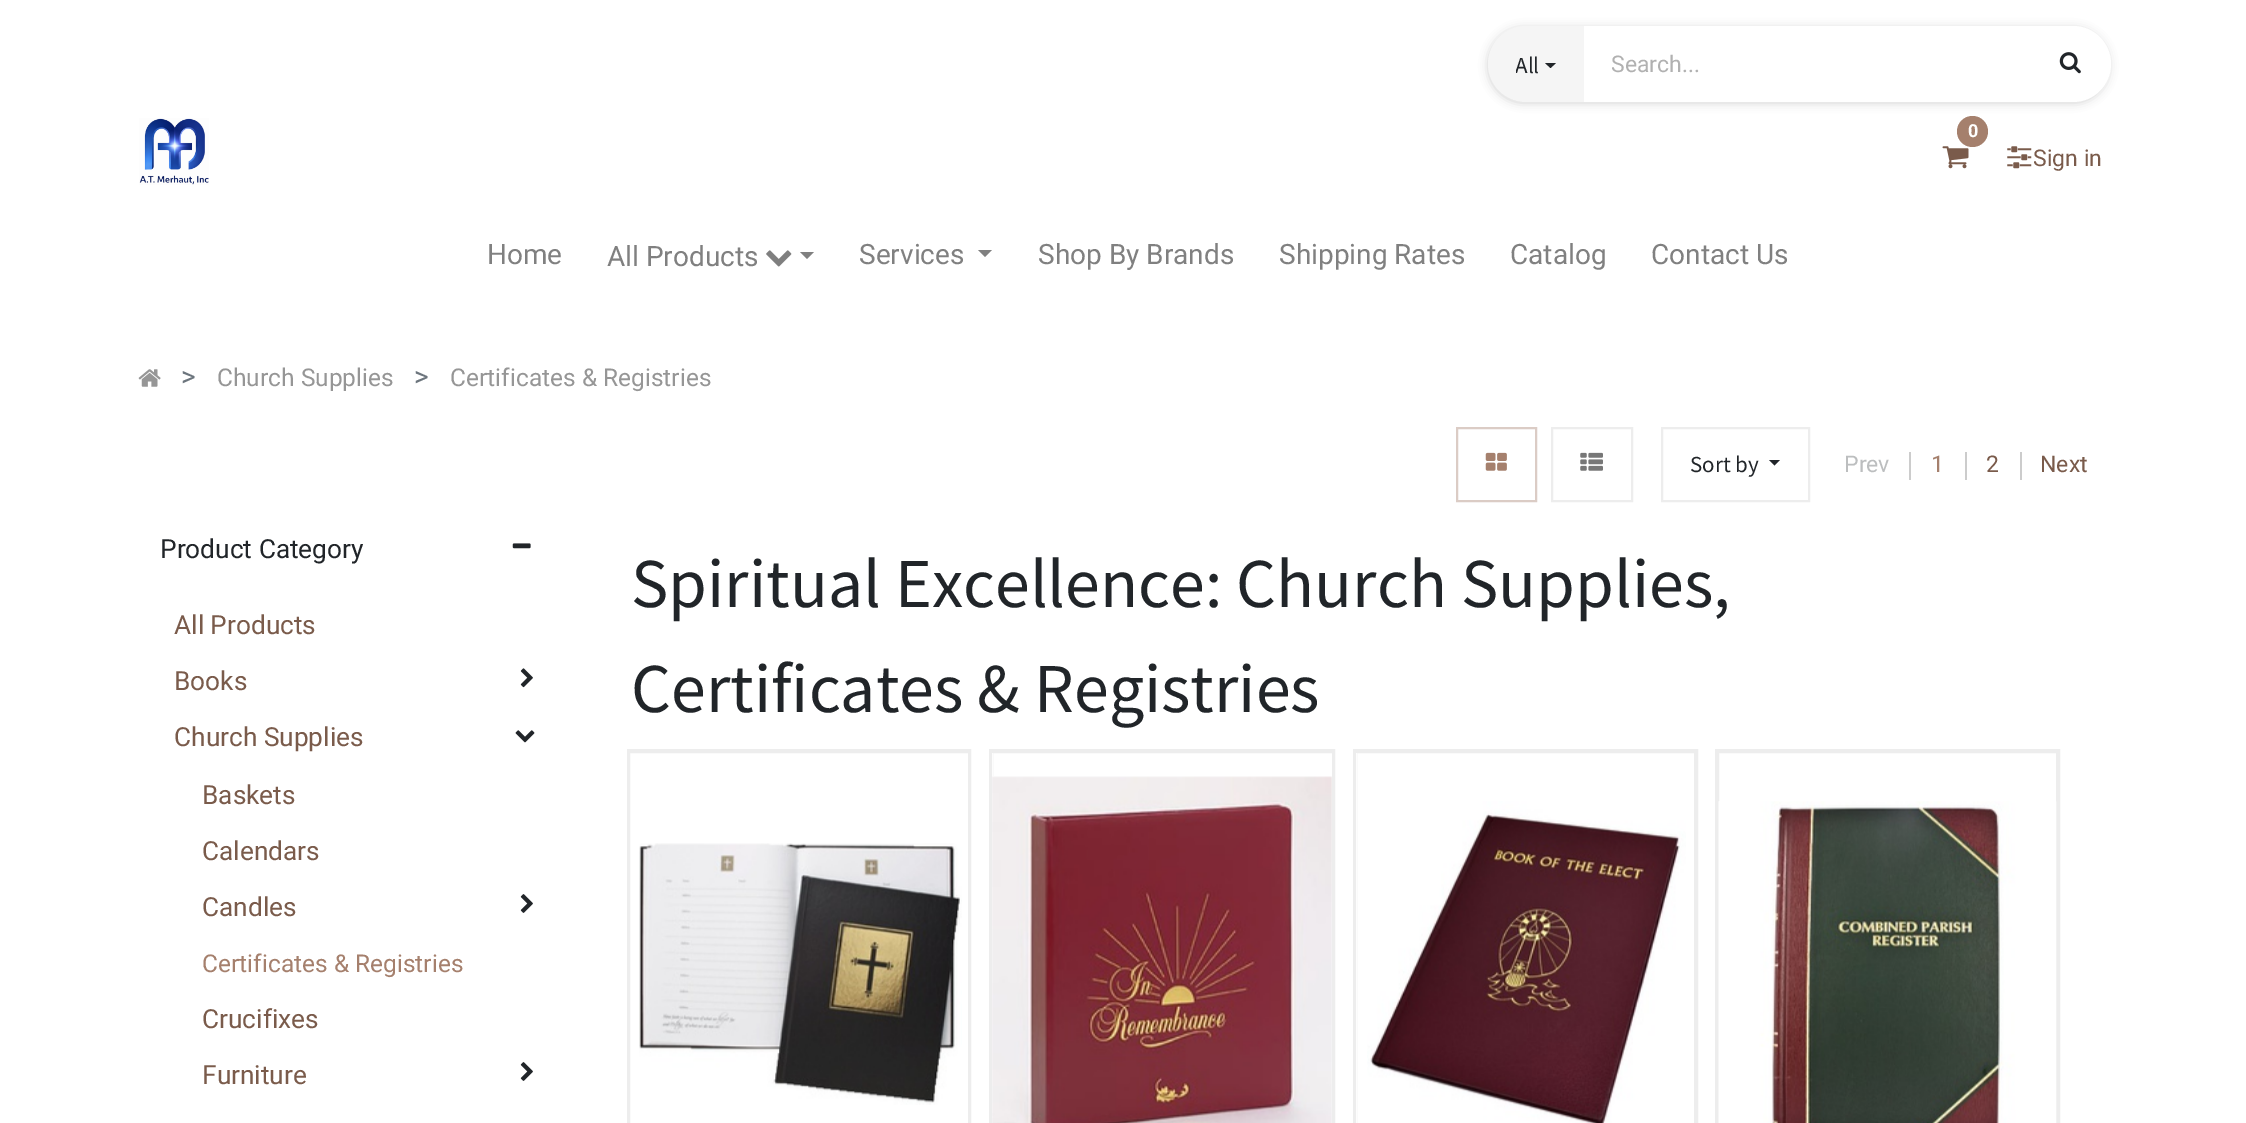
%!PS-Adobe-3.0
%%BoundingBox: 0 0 2246 1123
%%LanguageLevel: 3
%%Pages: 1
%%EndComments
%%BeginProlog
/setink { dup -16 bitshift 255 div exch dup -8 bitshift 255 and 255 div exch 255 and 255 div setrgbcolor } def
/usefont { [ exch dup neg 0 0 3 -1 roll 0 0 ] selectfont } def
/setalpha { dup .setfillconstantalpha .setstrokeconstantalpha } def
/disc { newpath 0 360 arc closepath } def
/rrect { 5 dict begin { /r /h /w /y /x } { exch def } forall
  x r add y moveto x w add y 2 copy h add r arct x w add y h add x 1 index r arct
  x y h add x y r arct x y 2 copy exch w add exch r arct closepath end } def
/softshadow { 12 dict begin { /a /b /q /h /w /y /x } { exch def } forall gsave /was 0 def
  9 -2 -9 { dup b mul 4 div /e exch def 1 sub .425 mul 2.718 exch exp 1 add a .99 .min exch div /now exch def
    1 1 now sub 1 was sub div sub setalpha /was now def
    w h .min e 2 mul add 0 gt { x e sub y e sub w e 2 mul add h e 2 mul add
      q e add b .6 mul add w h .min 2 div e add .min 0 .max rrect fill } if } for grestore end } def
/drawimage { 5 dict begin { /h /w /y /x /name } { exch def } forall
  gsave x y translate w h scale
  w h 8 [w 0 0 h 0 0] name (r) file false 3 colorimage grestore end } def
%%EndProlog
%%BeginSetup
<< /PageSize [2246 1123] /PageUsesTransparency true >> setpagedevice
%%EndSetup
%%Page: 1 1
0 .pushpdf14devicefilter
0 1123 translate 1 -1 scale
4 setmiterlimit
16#FFFFFF setink
0 0 2246 1123 rectfill
16#202124 setink
1488 28 621 75 37.5 4.5 0.2 softshadow
16#F5F5F5 setink
1526 26 moveto 1584 26 lineto 1584 102 lineto 1526 102 lineto 1505 102 1488 85 1488 64 curveto 1488 43 1505 26 1526 26 curveto closepath fill
gsave
1516 47 22 39 rectclip
/SourceSansPro-Regular 23 usefont
16#212529 setink
1515 73 moveto (All) show
grestore
16#212529 setink
1545 63 moveto 1556 63 lineto 1550.5 68 lineto closepath fill
16#FFFFFF setink
1584 26 moveto 2073 26 lineto 2094 26 2111 43 2111 64 curveto 2111 85 2094 102 2073 102 curveto 1584 102 lineto closepath fill
/Roboto-Regular 23 usefont
16#B1B1B1 setink
1611 72 moveto (Search...) show
(img1.raw) 2059 52 22 22 drawimage
(img2.raw) 139 118 70 67 drawimage
(img3.raw) 1942 146 27 23 drawimage
16#A5806D setink
1972.5 131.5 15.5 disc fill
/Roboto-Bold 18 usefont
16#FFFFFF setink
1968 137 moveto (0) show
(img4.raw) 2007 146 25 23 drawimage
/Roboto-Regular 23 usefont
16#7A5B4B setink
2033 166 moveto (Sign in) show
/Roboto-Regular 28 usefont
16#808080 setink
487 264 moveto (Home) show
607 266 moveto (All Products) show
(img5.raw) 766 250 26 17 drawimage
800 252 moveto 814 252 lineto 807 259 lineto closepath fill
859 264 moveto (Services) show
978 250 moveto 992 250 lineto 985 257 lineto closepath fill
[
    [(Shop By Brands) 1038 264]
    [(Shipping Rates) 1279 264]
    [(Catalog) 1510 264]
    [(Contact Us) 1651 264]
] { aload pop moveto show } forall
(img6.raw) 138 369 23 18 drawimage
16#6C757D setink
181 386 moveto (>) show
/Roboto-Regular 24.5 usefont
16#969696 setink
217 386 moveto (Church Supplies) show
/Roboto-Regular 28 usefont
16#6C757D setink
414 386 moveto (>) show
/Roboto-Regular 24.5 usefont
16#969696 setink
450 386 moveto (Certificates & Registries) show
16#DBCCC5 setink
2 setlinewidth
1457 428 79 73 rectstroke
(img7.raw) 1485 452 22 19 drawimage
16#EDEDED setink
1552 428 80 73 rectstroke
(img8.raw) 1580 452 23 19 drawimage
1662 428 147 73 rectstroke
/SourceSansPro-Regular 23 usefont
16#212529 setink
1690 472 moveto (Sort by) show
1769 460 moveto 1780 460 lineto 1774.5 465.5 lineto closepath fill
16#CCCCCC setink
1909 452 2 28 rectfill
/Roboto-Regular 23 usefont
16#BCBEBF setink
1844 472 moveto (Prev) show
16#CCCCCC setink
1965 452 2 28 rectfill
16#A5806D setink
1931 472 moveto (1) show
16#CCCCCC setink
2020 452 2 28 rectfill
16#7A5B4B setink
1986 472 moveto (2) show
2040 472 moveto (Next) show
/Roboto-Regular 26.25 usefont
16#212529 setink
160 558 moveto (Product Category) show
(img9.raw) 512 543 19 6 drawimage
16#7A5B4B setink
174 634 moveto (All Products) show
174 690 moveto (Books) show
(img10.raw) 520 668 13 20 drawimage
174 746 moveto (Church Supplies) show
(img11.raw) 515 730 20 13 drawimage
[
    [(Baskets) 202 804]
    [(Calendars) 202 860]
    [(Candles) 202 916]
] { aload pop moveto show } forall
(img12.raw) 520 894 13 19 drawimage
/Roboto-Regular 24.5 usefont
16#A5806D setink
202 972 moveto (Certificates & Registries) show
/Roboto-Regular 26.25 usefont
16#7A5B4B setink
202 1028 moveto (Crucifixes) show
202 1084 moveto (Furniture) show
(img12.raw) 520 1062 13 19 drawimage
/SourceSansPro-Regular 70 usefont
16#212529 setink
631 607 moveto (Spiritual Excellence: Church Supplies,) show
631 712 moveto (Certificates & Registries) show
16#EDEDED setink
628 750 342 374 rectstroke
629 752 340 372 rectstroke
(img13.raw) 639 843 323 262 drawimage
990 750 344 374 rectstroke
992 752 341 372 rectstroke
0.9 setalpha
16#FFFFFF setink
992 753 1 370 rectfill
1 setalpha
(img14.raw) 992 776 340 347 drawimage
16#EDEDED setink
1354 750 343 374 rectstroke
1356 752 339 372 rectstroke
0.9 setalpha
16#FFFFFF setink
1356 753 1 370 rectfill
1 setalpha
(img15.raw) 1367 801 319 322 drawimage
16#EDEDED setink
1716 750 343 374 rectstroke
1718 752 339 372 rectstroke
(img16.raw) 1718 801 339 322 drawimage
.poppdf14devicefilter showpage
%%EOF
